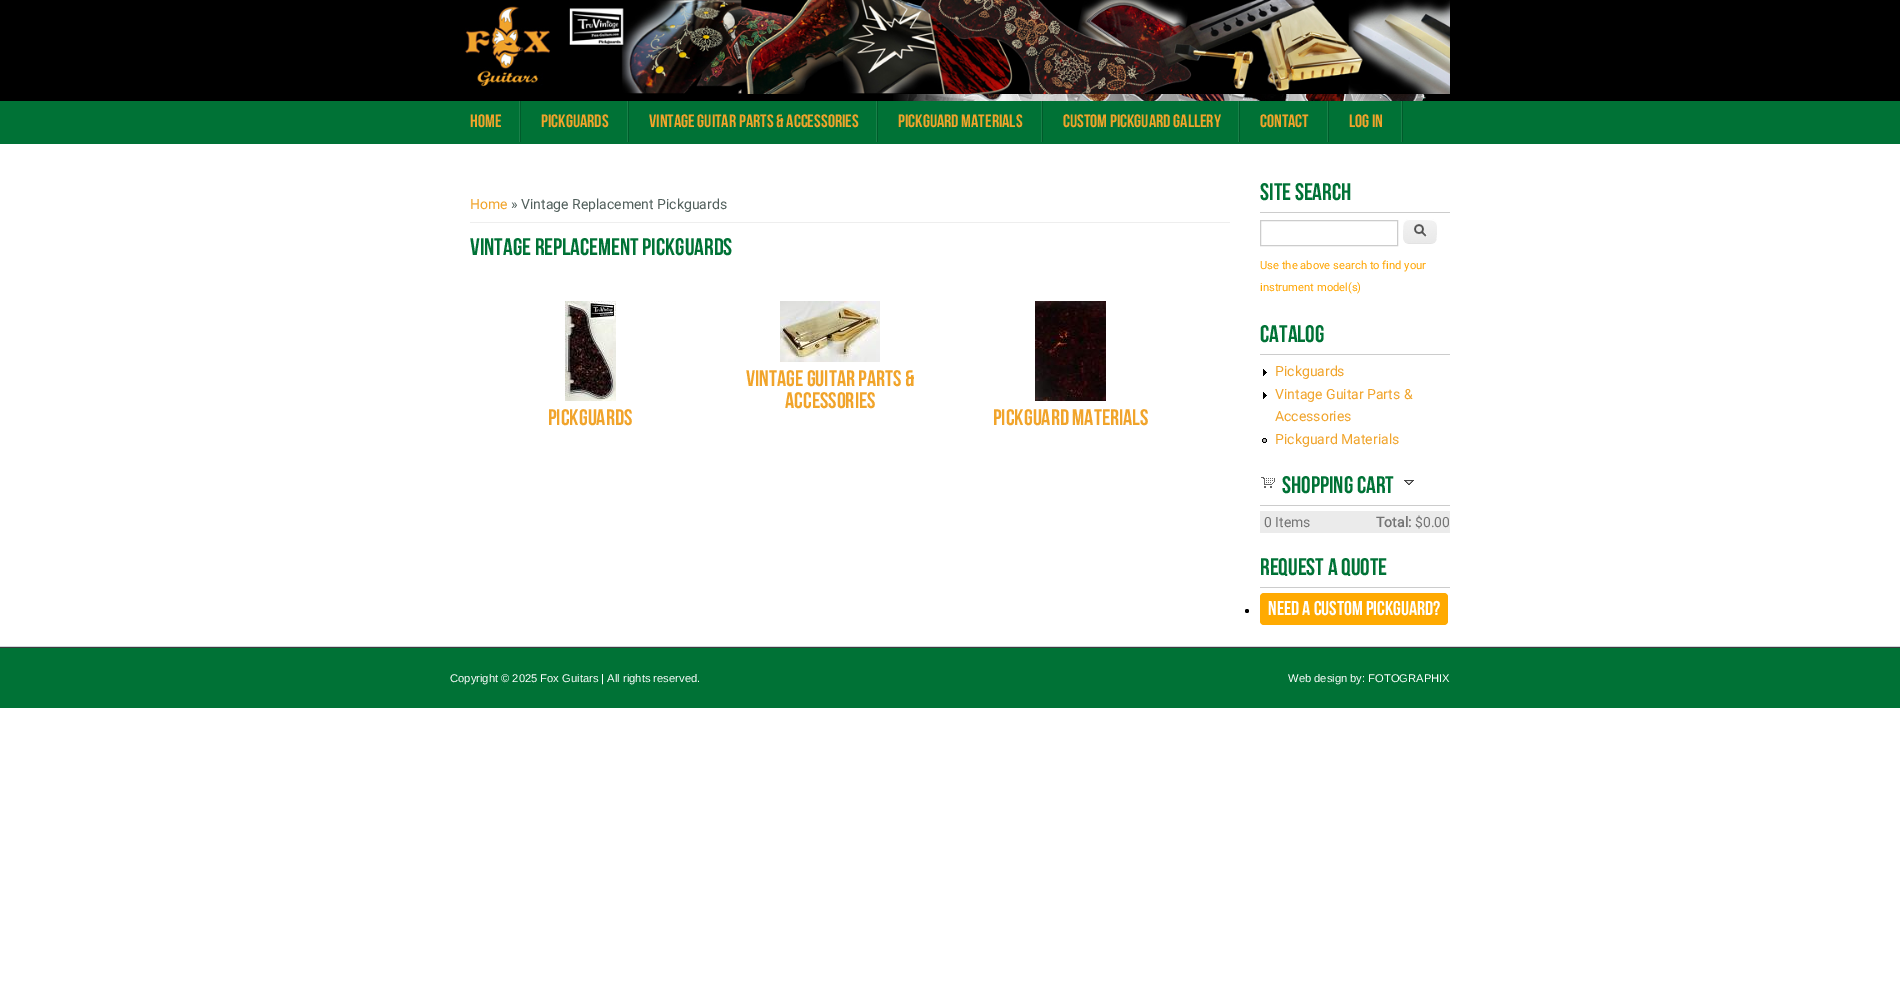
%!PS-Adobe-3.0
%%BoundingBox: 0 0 1900 993
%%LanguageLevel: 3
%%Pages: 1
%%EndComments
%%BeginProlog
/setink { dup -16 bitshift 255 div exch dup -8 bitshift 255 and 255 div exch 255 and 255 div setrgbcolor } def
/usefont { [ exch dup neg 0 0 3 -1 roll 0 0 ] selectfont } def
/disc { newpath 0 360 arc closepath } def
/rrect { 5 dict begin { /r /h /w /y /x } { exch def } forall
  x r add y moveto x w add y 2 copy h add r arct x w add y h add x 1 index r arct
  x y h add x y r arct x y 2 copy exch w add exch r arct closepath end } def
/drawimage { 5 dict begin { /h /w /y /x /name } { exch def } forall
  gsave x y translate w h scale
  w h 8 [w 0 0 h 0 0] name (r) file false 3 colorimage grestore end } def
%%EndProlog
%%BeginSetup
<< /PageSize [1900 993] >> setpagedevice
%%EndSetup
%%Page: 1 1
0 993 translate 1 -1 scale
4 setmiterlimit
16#FFFFFF setink
0 0 1900 993 rectfill
16#000000 setink
0 0 1900 101 rectfill
(img1.raw) 893 94 538 7 drawimage
(img2.raw) 464 0 986 94 drawimage
16#007236 setink
0 101 1900 43 rectfill
(img3.raw) 519 101 2 41 drawimage
/BebasNeue-Regular 18 usefont
16#F1A42B setink
470 127 moveto (Home) show
(img3.raw) 627 101 2 41 drawimage
541 127 moveto (Pickguards) show
(img3.raw) 876 101 2 41 drawimage
649 127 moveto (Vintage Guitar Parts & Accessories) show
(img3.raw) 1041 101 2 41 drawimage
898 127 moveto (Pickguard Materials) show
(img3.raw) 1238 101 2 41 drawimage
1063 127 moveto (Custom Pickguard Gallery) show
(img3.raw) 1327 101 2 41 drawimage
1260 127 moveto (Contact) show
(img3.raw) 1401 101 2 41 drawimage
1349 127 moveto (Log In) show
16#EEEEEE setink
470 222 760 1 rectfill
/Roboto-Regular 14 usefont
16#F1A42B setink
470 209 moveto (Home) show
16#515F5C setink
511 209 moveto (» Vintage Replacement Pickguards) show
/BebasNeue-Regular 24 usefont
16#007236 setink
470 255 moveto (Vintage Replacement Pickguards) show
(img4.raw) 780 301 100 61 drawimage
/BebasNeue-Regular 22.5 usefont
16#F1A42B setink
746 386 moveto (Vintage Guitar Parts &) show
785 408 moveto (Accessories) show
(img5.raw) 565 301 51 100 drawimage
548 425 moveto (Pickguards) show
(img6.raw) 1035 301 71 100 drawimage
993 425 moveto (Pickguard Materials) show
16#CCCCCC setink
1260 212 190 1 rectfill
/BebasNeue-Regular 24 usefont
16#007236 setink
1260 200 moveto (Site Search) show
16#CCCCCC setink
1260.5 220.5 137 25 rectstroke
(img7.raw) 1403 219 34 25 drawimage
16#FFFFFF setink
1409 220 moveto 1427 220 lineto 1434.5 220 1436.5 222 1437 226 curveto 1437 225 lineto 1437 221.5 1434.5 219 1431 219 curveto 1409 219 lineto 1405.5 219 1403 221.5 1403 225 curveto 1403 230 lineto 1403 226 1403 220 1409 220 curveto closepath 1437 235 moveto 1436.5 240 lineto 1437 238.5 1437 236.5 1437 235 curveto closepath eofill
/Roboto-Regular 11.2 usefont
16#FFA500 setink
1260 269 moveto (Use the above search to find your) show
1260 291 moveto (instrument model\(s\)) show
16#CCCCCC setink
1260 354 190 1 rectfill
/BebasNeue-Regular 24 usefont
16#007236 setink
1260 342 moveto (Catalog) show
(img8.raw) 1263 369 4 7 drawimage
/Roboto-Regular 14 usefont
16#F1A42B setink
1275 376 moveto (Pickguards) show
(img8.raw) 1263 392 4 7 drawimage
1275 399 moveto (Vintage Guitar Parts &) show
1275 421 moveto (Accessories) show
(img9.raw) 1262 438 5 5 drawimage
1275 444 moveto (Pickguard Materials) show
16#CCCCCC setink
1260 505 190 1 rectfill
(img10.raw) 1261 477 14 11 drawimage
/BebasNeue-Regular 24 usefont
16#007236 setink
1282 493 moveto (Shopping cart) show
(img11.raw) 1404 480 10 5 drawimage
16#EBEBEB setink
1260 511 190 22 rectfill
/Roboto-Regular 14 usefont
16#747474 setink
1264 527 moveto (0 Items) show
/Roboto-Bold 14 usefont
1376 527 moveto (Total:) show
/Roboto-Regular 14 usefont
1415 527 moveto ($0.00) show
16#CCCCCC setink
1260 587 190 1 rectfill
/BebasNeue-Regular 24 usefont
16#007236 setink
1260 575 moveto (Request A Quote) show
16#000000 setink
1247 611 2 disc fill
16#FFAA01 setink
1260 593 188 32 4 rrect fill
/BebasNeue-Regular 20 usefont
16#FFFFFF setink
1268 615 moveto (Need a CUSTOM Pickguard?) show
[
    [0 646 1900 1 16#CFD7DB]
    [0 648 1900 60 16#007236]
    [0 647 1900 1 16#3B3C3D]
] { aload pop setink rectfill } forall
/LiberationSans-Regular 11.2 usefont
16#FFFFFF setink
450 682 moveto (Copyright © 2025 Fox Guitars | All rights reserved.) show
1288 682 moveto (Web design by: FOTOGRAPHIX) show
showpage
%%EOF
